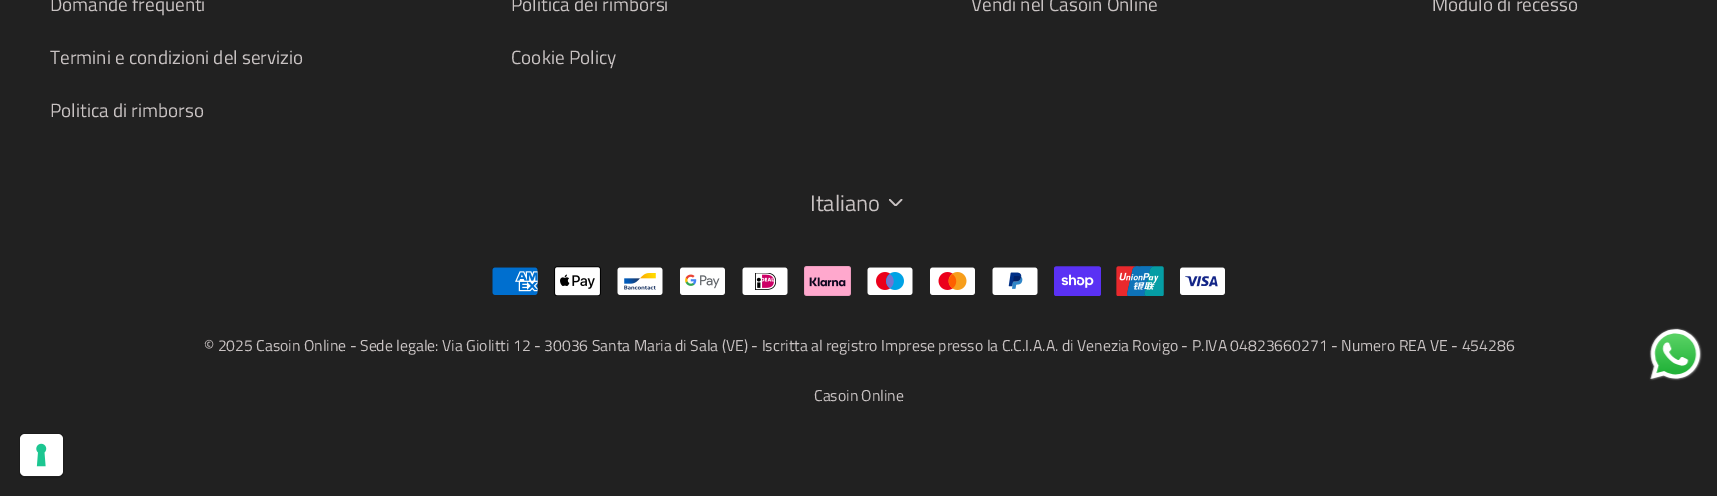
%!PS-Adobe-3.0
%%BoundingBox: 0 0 1717 496
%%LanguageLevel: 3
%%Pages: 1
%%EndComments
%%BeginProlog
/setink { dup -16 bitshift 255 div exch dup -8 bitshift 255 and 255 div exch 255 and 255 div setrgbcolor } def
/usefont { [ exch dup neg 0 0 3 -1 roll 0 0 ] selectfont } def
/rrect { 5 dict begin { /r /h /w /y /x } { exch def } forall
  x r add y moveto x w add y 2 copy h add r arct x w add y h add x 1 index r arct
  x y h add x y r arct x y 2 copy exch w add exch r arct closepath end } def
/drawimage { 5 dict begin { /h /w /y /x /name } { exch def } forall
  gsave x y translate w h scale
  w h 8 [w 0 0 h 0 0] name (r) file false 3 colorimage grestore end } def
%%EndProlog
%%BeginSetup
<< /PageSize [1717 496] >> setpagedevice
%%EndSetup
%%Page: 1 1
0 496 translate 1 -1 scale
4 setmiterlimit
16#212121 setink
0 0 1717 496 rectfill
/TitilliumWeb-Regular 19.1 usefont
16#C8C2C2 setink
[
    [(Domande frequenti) 50 11]
    [(Termini e condizioni del servizio) 50 64]
    [(Politica di rimborso) 50 117]
    [(Politica dei rimborsi) 511 11]
    [(Cookie Policy) 511 64]
    [(Vendi nel Casoin Online) 971 11]
    [(Modulo di recesso) 1432 11]
] { aload pop moveto show } forall
(img1.raw) 889 199 14 7 drawimage
/TitilliumWeb-Regular 22.5 usefont
810 211 moveto (Italiano) show
(img2.raw) 492 267 46 28 drawimage
(img3.raw) 554 266 47 30 drawimage
(img4.raw) 617 267 46 28 drawimage
(img5.raw) 680 267 45 28 drawimage
(img6.raw) 742 267 46 28 drawimage
(img7.raw) 804 266 47 30 drawimage
(img8.raw) 867 267 46 28 drawimage
(img9.raw) 930 267 45 28 drawimage
(img10.raw) 992 267 46 28 drawimage
(img11.raw) 1054 266 47 30 drawimage
(img12.raw) 1116 266 48 30 drawimage
(img13.raw) 1180 267 45 28 drawimage
/TitilliumWeb-Regular 15.75 usefont
204 351 moveto (© 2025 Casoin Online - Sede legale: Via Giolitti 12 - 30036 Santa Maria di Sala \(VE\) - Iscritta al registro Imprese presso la C.C.I.A.A. di Venezia Rovigo - P.IVA 04823660271 - Numero REA VE - 454286) show
814 401 moveto (Casoin Online) show
(img14.raw) 1649 327 54 54 drawimage
16#1C1C1C setink
19.5 433.5 44 44 5.5 rrect stroke
16#FFFFFF setink
20 434 43 42 5 rrect fill
(img15.raw) 36 443 11 24 drawimage
showpage
%%EOF
